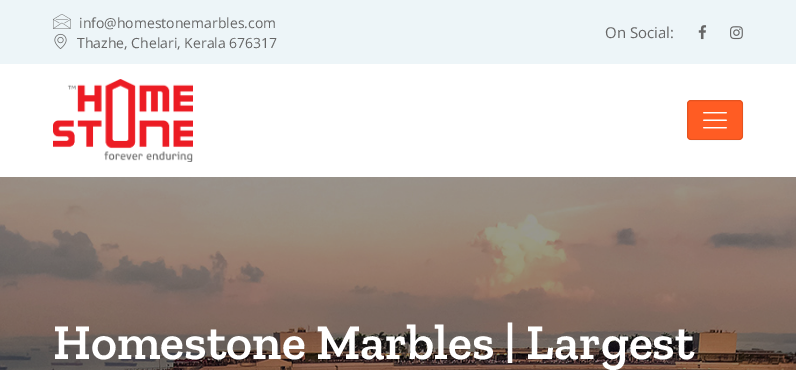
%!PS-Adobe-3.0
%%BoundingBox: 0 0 796 370
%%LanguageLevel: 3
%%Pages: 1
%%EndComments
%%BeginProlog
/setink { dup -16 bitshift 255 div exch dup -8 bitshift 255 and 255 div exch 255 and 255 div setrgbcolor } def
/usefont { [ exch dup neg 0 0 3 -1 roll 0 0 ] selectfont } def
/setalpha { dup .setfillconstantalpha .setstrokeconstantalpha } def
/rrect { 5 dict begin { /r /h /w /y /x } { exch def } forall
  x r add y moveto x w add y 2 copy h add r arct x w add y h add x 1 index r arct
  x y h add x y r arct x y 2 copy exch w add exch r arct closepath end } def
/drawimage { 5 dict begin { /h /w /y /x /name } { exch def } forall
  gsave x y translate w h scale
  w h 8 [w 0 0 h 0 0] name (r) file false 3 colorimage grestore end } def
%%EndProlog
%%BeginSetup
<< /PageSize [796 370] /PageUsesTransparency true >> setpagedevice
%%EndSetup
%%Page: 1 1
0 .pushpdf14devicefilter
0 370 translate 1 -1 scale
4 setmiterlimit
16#FFFFFF setink
0 0 796 370 rectfill
16#EDF5F8 setink
0 0 796 64 rectfill
(img1.raw) 53 14 18 15 drawimage
/OpenSans-Regular 14 usefont
16#666666 setink
79 28 moveto (info@homestonemarbles.com) show
(img2.raw) 54 33 13 16 drawimage
77 48 moveto (Thazhe, Chelari, Kerala 676317) show
/OpenSans-Regular 15 usefont
605 38 moveto (On Social:) show
(img3.raw) 698 25 9 15 drawimage
(img4.raw) 730 26 13 14 drawimage
(img5.raw) 53 79 140 83 drawimage
16#FF5C23 setink
687 100 56 40 4 rrect fill
0.1 setalpha
16#000000 setink
687.5 100.5 55 39 3.5 rrect stroke
1 setalpha
(img6.raw) 703 112 24 17 drawimage
(img7.raw) 0 177 796 193 drawimage
/ZillaSlab-SemiBold 50 usefont
16#FFFFFF setink
53 359 moveto (Homestone Marbles | Largest) show
.poppdf14devicefilter showpage
%%EOF
